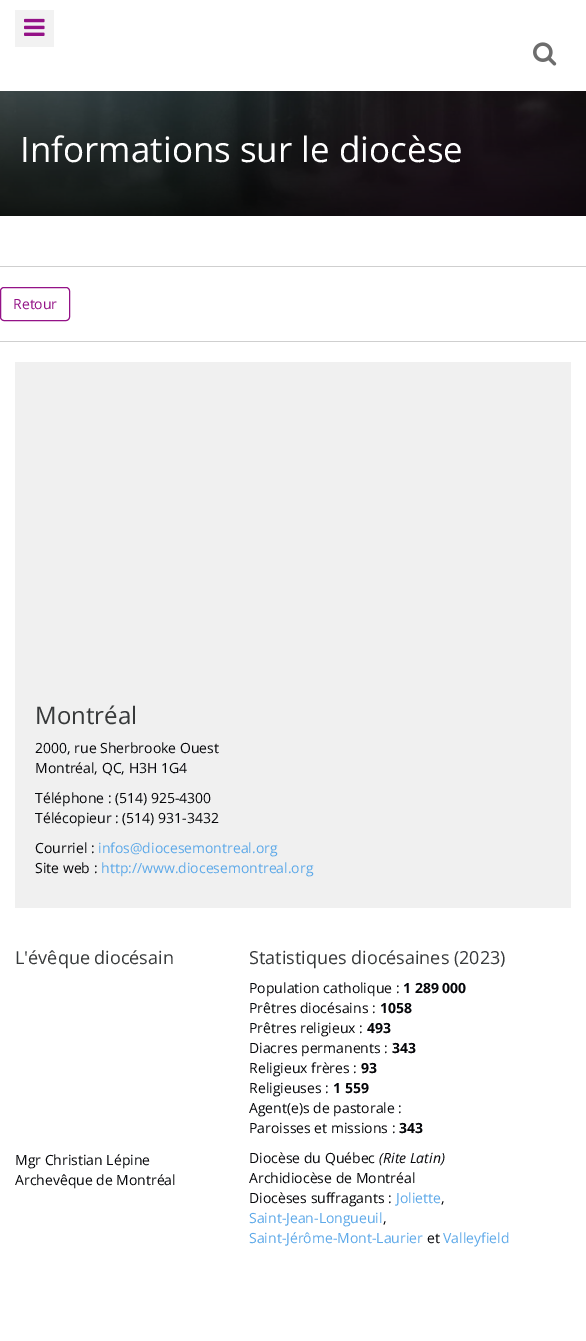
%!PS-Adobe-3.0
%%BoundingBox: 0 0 586 1341
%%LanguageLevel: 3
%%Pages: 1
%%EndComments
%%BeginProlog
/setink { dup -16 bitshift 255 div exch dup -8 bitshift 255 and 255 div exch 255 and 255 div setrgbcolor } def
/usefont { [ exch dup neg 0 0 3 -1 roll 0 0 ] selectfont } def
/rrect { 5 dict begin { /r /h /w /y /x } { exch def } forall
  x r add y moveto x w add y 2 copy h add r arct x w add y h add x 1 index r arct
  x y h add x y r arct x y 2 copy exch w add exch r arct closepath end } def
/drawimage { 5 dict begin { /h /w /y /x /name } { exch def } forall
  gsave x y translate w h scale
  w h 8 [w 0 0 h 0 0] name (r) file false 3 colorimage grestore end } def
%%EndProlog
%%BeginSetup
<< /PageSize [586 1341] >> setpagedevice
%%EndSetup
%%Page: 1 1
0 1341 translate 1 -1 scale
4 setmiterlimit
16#FFFFFF setink
0 0 586 1341 rectfill
16#F2F2F2 setink
15 10 39 37 rectfill
(img1.raw) 24 18 21 18 drawimage
(img2.raw) 533 42 24 24 drawimage
(img3.raw) 0 91 586 125 drawimage
/OpenSans-Regular 35 usefont
16#FFFFFF setink
20 162 moveto (Informations sur le diocèse) show
16#CFCFCF setink
0 266 586 1 rectfill
16#941287 setink
0.5 287.5 69 33 3.5 rrect stroke
/OpenSans-Regular 14 usefont
13 309 moveto (Retour) show
16#CFCFCF setink
0 341 586 1 rectfill
16#F0F0F0 setink
15 362 556 546 rectfill
/OpenSans-Regular 24 usefont
16#37393A setink
35 724 moveto (Montréal) show
/OpenSans-Regular 14 usefont
16#050609 setink
[
    [(2000, rue Sherbrooke Ouest) 35 753]
    [(Montréal, QC, H3H 1G4) 35 773]
    [(Téléphone : \(514\) 925-4300) 35 803]
    [(Télécopieur : \(514\) 931-3432) 35 823]
    [(Courriel :) 35 853]
] { aload pop moveto show } forall
16#5DA9E9 setink
98 853 moveto (infos@diocesemontreal.org) show
16#050609 setink
35 873 moveto (Site web :) show
16#5DA9E9 setink
101 873 moveto (http://www.diocesemontreal.org) show
/OpenSans-Regular 18 usefont
16#37393A setink
15 964 moveto (L'évêque diocésain) show
/OpenSans-Regular 14 usefont
16#050609 setink
15 1165 moveto (Mgr Christian Lépine) show
15 1185 moveto (Archevêque de Montréal) show
/OpenSans-Regular 18 usefont
16#37393A setink
249 964 moveto (Statistiques diocésaines \(2023\)) show
/OpenSans-Regular 14 usefont
16#050609 setink
249 993 moveto (Population catholique :) show
/OpenSans-Bold 14 usefont
403 993 moveto (1 289 000) show
/OpenSans-Regular 14 usefont
249 1013 moveto (Prêtres diocésains :) show
/OpenSans-Bold 14 usefont
380 1013 moveto (1058) show
/OpenSans-Regular 14 usefont
249 1033 moveto (Prêtres religieux :) show
/OpenSans-Bold 14 usefont
367 1033 moveto (493) show
/OpenSans-Regular 14 usefont
249 1053 moveto (Diacres permanents :) show
/OpenSans-Bold 14 usefont
392 1053 moveto (343) show
/OpenSans-Regular 14 usefont
249 1073 moveto (Religieux frères :) show
/OpenSans-Bold 14 usefont
361 1073 moveto (93) show
/OpenSans-Regular 14 usefont
249 1093 moveto (Religieuses :) show
/OpenSans-Bold 14 usefont
333 1093 moveto (1 559) show
/OpenSans-Regular 14 usefont
249 1113 moveto (Agent\(e\)s de pastorale :) show
249 1133 moveto (Paroisses et missions :) show
/OpenSans-Bold 14 usefont
399 1133 moveto (343) show
/OpenSans-Regular 14 usefont
249 1163 moveto (Diocèse du Québec) show
/OpenSans-Italic 14 usefont
379 1163 moveto (\(Rite Latin\)) show
/OpenSans-Regular 14 usefont
249 1183 moveto (Archidiocèse de Montréal) show
249 1203 moveto (Diocèses suffragants :) show
16#5DA9E9 setink
396 1203 moveto (Joliette) show
16#050609 setink
441 1203 moveto (,) show
16#5DA9E9 setink
249 1223 moveto (Saint-Jean-Longueuil) show
16#050609 setink
383 1223 moveto (,) show
16#5DA9E9 setink
249 1243 moveto (Saint-Jérôme-Mont-Laurier) show
16#050609 setink
427 1243 moveto (et) show
16#5DA9E9 setink
443 1243 moveto (Valleyfield) show
showpage
%%EOF
